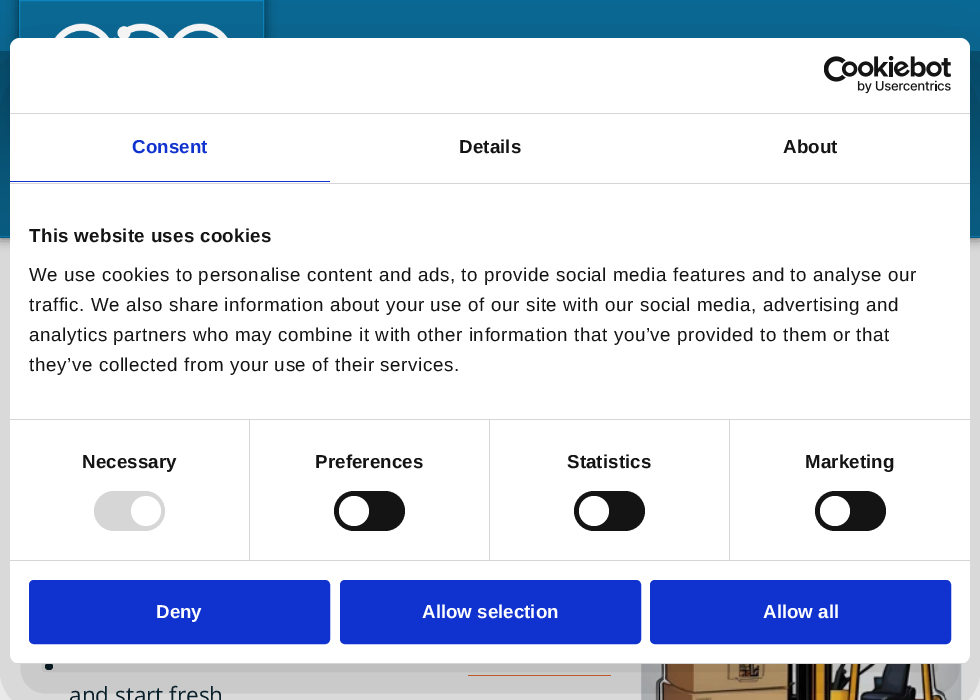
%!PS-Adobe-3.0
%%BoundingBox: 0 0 980 700
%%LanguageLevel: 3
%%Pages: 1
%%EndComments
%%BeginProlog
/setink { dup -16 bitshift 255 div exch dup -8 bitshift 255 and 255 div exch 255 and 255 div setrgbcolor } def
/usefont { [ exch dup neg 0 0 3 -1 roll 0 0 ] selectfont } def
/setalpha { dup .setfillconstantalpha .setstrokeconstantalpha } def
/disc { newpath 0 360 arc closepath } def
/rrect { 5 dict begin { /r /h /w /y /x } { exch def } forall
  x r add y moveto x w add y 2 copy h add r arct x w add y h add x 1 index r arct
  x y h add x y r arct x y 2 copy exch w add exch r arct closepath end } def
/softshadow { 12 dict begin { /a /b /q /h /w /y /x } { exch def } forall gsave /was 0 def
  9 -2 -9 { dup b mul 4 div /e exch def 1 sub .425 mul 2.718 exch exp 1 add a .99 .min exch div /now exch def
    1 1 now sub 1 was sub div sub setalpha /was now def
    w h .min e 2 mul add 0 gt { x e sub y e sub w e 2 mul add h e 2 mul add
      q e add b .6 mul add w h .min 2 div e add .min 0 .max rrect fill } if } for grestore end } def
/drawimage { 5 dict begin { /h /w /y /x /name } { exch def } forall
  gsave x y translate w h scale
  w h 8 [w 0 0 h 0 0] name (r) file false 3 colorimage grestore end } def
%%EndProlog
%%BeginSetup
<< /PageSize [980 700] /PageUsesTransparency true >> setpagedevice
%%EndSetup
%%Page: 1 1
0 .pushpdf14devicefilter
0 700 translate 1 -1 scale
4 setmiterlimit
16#FFFFFF setink
0 0 980 700 rectfill
16#000000 setink
0 0 980 238 0 6 0.6 softshadow
gsave 0 0 moveto 980 0 lineto 980 51 lineto 0 51 lineto closepath clip newpath
<< /ShadingType 2 /ColorSpace /DeviceRGB /Coords [490 0 490 236] /Extend [true true] /Function << /FunctionType 3 /Domain [0 1] /Functions [<< /FunctionType 2 /Domain [0 1] /C0 [0.039 0.416 0.588] /C1 [0.039 0.408 0.576] /N 1 >> << /FunctionType 2 /Domain [0 1] /C0 [0.039 0.408 0.576] /C1 [0.031 0.333 0.467] /N 1 >> << /FunctionType 2 /Domain [0 1] /C0 [0.031 0.333 0.467] /C1 [0.027 0.314 0.439] /N 1 >>] /Bounds [0.22 0.8] /Encode [0 1 0 1 0 1] >> >> shfill grestore
gsave 0 237 moveto 980 237 lineto 980 238 lineto 0 238 lineto closepath clip newpath
<< /ShadingType 2 /ColorSpace /DeviceRGB /Coords [490 236 490 473] /Extend [true true] /Function << /FunctionType 3 /Domain [0 1] /Functions [<< /FunctionType 2 /Domain [0 1] /C0 [0.039 0.416 0.588] /C1 [0.039 0.408 0.576] /N 1 >> << /FunctionType 2 /Domain [0 1] /C0 [0.039 0.408 0.576] /C1 [0.031 0.333 0.467] /N 1 >> << /FunctionType 2 /Domain [0 1] /C0 [0.031 0.333 0.467] /C1 [0.027 0.314 0.439] /N 1 >>] /Bounds [0.22 0.8] /Encode [0 1 0 1 0 1] >> >> shfill grestore
16#0D86BD setink
0 236 980 1 rectfill
gsave 0 51 moveto 980 51 lineto 980 236 lineto 0 236 lineto closepath clip newpath
<< /ShadingType 2 /ColorSpace /DeviceRGB /Coords [490 51 490 236] /Extend [true true] /Function << /FunctionType 3 /Domain [0 1] /Functions [<< /FunctionType 2 /Domain [0 1] /C0 [0.027 0.314 0.439] /C1 [0.031 0.333 0.467] /N 1 >> << /FunctionType 2 /Domain [0 1] /C0 [0.031 0.333 0.467] /C1 [0.039 0.408 0.576] /N 1 >> << /FunctionType 2 /Domain [0 1] /C0 [0.039 0.408 0.576] /C1 [0.039 0.416 0.588] /N 1 >>] /Bounds [0.22 0.8] /Encode [0 1 0 1 0 1] >> >> shfill grestore
16#000000 setink
19 0 245 139 0 6 0.6 softshadow
gsave 20 1 moveto 263 1 lineto 263 38 lineto 20 38 lineto closepath clip newpath
<< /ShadingType 2 /ColorSpace /DeviceRGB /Coords [141 1.2 141 138] /Extend [true true] /Function << /FunctionType 3 /Domain [0 1] /Functions [<< /FunctionType 2 /Domain [0 1] /C0 [0.039 0.416 0.588] /C1 [0.039 0.416 0.588] /N 1 >> << /FunctionType 2 /Domain [0 1] /C0 [0.039 0.416 0.588] /C1 [0.027 0.314 0.439] /N 1 >>] /Bounds [0.34] /Encode [0 1 0 1] >> >> shfill grestore
16#0D86BD setink
19.5 0.5 244 138 rectstroke
(img1.raw) 54 23 174 15 drawimage
16#0A202A setink
45 663 8 7 3.5 rrect fill
16#F07339 setink
468 675 143 1 rectfill
(img3.raw) 641 663 321 37 drawimage
16#000000 setink
10 78 960 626 10 42.5 0.3 softshadow
16#FFFFFF setink
10 38 960 626 10 rrect fill
16#D6D6D6 setink
10 113 960 1 rectfill
(img2.raw) 824 56 127 38 drawimage
10 183 960 1 rectfill
16#1032CF setink
10 181 320 1 rectfill
/LiberationSans-Bold 18.75 usefont
132 153 moveto 0.1 0 (Consent) ashow
16#141414 setink
459 153 moveto 0.1 0 (Details) ashow
783 153 moveto 0.1 0 (About) ashow
16#D6D6D6 setink
10 419 960 1 rectfill
16#141414 setink
29 242 moveto 0.3 0 (This website uses cookies) ashow
/LiberationSans-Regular 18.75 usefont
29 281 moveto 0.62 0 (We use cookies to personalise content and ads, to provide social media features and to analyse our) ashow
29 311 moveto 0.62 0 (traffic. We also share information about your use of our site with our social media, advertising and) ashow
29 341 moveto 0.62 0 (analytics partners who may combine it with other information that you’ve provided to them or that) ashow
29 371 moveto 0.62 0 (they’ve collected from your use of their services.) ashow
16#D6D6D6 setink
10 560 960 1 rectfill
249 420 1 140 rectfill
/LiberationSans-Bold 18.75 usefont
16#141414 setink
82 468 moveto 0.1 0 (Necessary) ashow
16#D6D6D6 setink
94 491 71 40 20 rrect fill
16#FFFFFF setink
146 511 15 disc fill
16#D6D6D6 setink
489 420 1 140 rectfill
16#141414 setink
315 468 moveto 0.1 0 (Preferences) ashow
334 491 71 40 20 rrect fill
16#FFFFFF setink
354 511 15 disc fill
16#D6D6D6 setink
729 420 1 140 rectfill
16#141414 setink
567 468 moveto 0.1 0 (Statistics) ashow
574 491 71 40 20 rrect fill
16#FFFFFF setink
594 511 15 disc fill
16#141414 setink
805 468 moveto 0.1 0 (Marketing) ashow
815 491 71 40 20 rrect fill
16#FFFFFF setink
835 511 15 disc fill
gsave
10 38 960 626 10 rrect clip newpath
16#D6D6D6 setink
10 663 960 1 rectfill
grestore
16#1032CF setink
30.5 581.5 298 61 3.5 rrect gsave fill grestore
3 setlinewidth
stroke
16#FFFFFF setink
156 618 moveto (Deny) show
16#1032CF setink
341.5 581.5 298 61 3.5 rrect gsave fill grestore
stroke
16#FFFFFF setink
422 618 moveto (Allow selection) show
16#1032CF setink
651.5 581.5 298 61 3.5 rrect gsave fill grestore
stroke
16#FFFFFF setink
763 618 moveto (Allow all) show
/OpenSans-Regular 22.5 usefont
16#0A202A setink
69 703 moveto (and start fresh) show
.poppdf14devicefilter showpage
%%EOF
